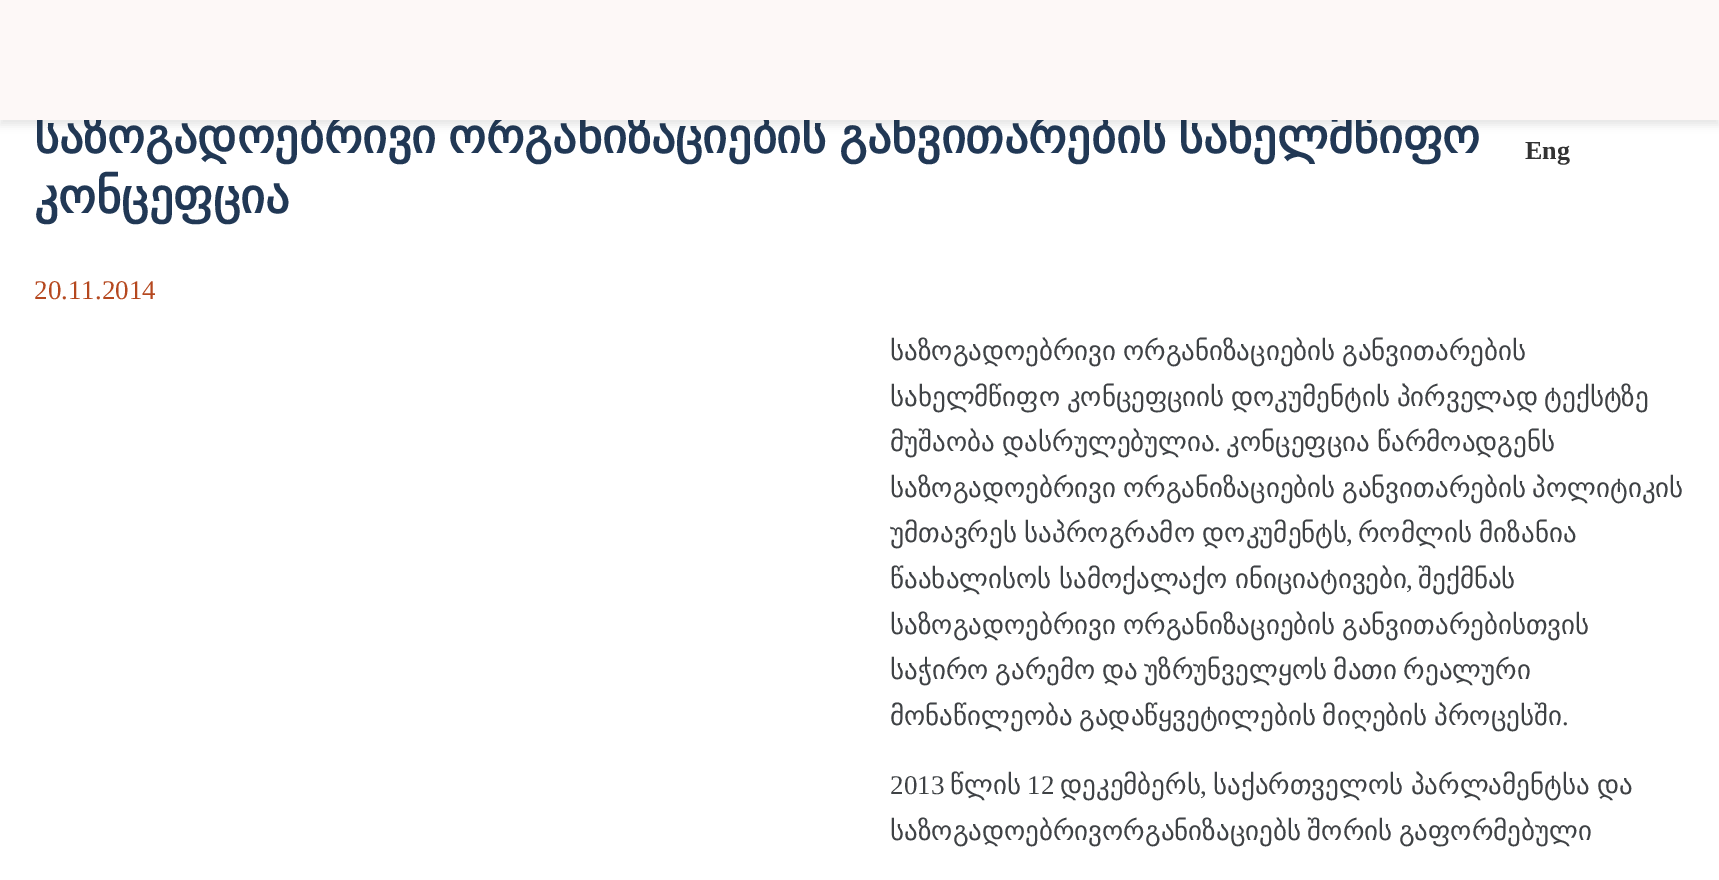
%!PS-Adobe-3.0
%%BoundingBox: 0 0 1719 880
%%LanguageLevel: 3
%%Pages: 1
%%EndComments
%%BeginProlog
/setink { dup -16 bitshift 255 div exch dup -8 bitshift 255 and 255 div exch 255 and 255 div setrgbcolor } def
/usefont { [ exch dup neg 0 0 3 -1 roll 0 0 ] selectfont } def
/setalpha { dup .setfillconstantalpha .setstrokeconstantalpha } def
/rrect { 5 dict begin { /r /h /w /y /x } { exch def } forall
  x r add y moveto x w add y 2 copy h add r arct x w add y h add x 1 index r arct
  x y h add x y r arct x y 2 copy exch w add exch r arct closepath end } def
/softshadow { 12 dict begin { /a /b /q /h /w /y /x } { exch def } forall gsave /was 0 def
  9 -2 -9 { dup b mul 4 div /e exch def 1 sub .425 mul 2.718 exch exp 1 add a .99 .min exch div /now exch def
    1 1 now sub 1 was sub div sub setalpha /was now def
    w h .min e 2 mul add 0 gt { x e sub y e sub w e 2 mul add h e 2 mul add
      q e add b .6 mul add w h .min 2 div e add .min 0 .max rrect fill } if } for grestore end } def
%%EndProlog
%%BeginSetup
<< /PageSize [1719 880] /PageUsesTransparency true >> setpagedevice
%%EndSetup
%%Page: 1 1
0 .pushpdf14devicefilter
0 880 translate 1 -1 scale
4 setmiterlimit
16#FFFFFF setink
0 0 1719 880 rectfill
/DejaVuSans-Bold 48 usefont
16#213855 setink
34 153 moveto -3 0 32 (საზოგადოებრივი ორგანიზაციების განვითარების სახელმწიფო) widthshow
34 213 moveto (კონცეფცია) show
/LiberationSerif-Regular 27 usefont
16#B5481F setink
34 299 moveto (20.11.2014) show
/DejaVuSans-Regular 27 usefont
16#3F4245 setink
890 360 moveto -2 0 32 (საზოგადოებრივი ორგანიზაციების განვითარების) widthshow
890 406 moveto -2 0 32 (სახელმწიფო კონცეფციის დოკუმენტის პირველად ტექსტზე) widthshow
890 451 moveto -1 0 32 (მუშაობა დასრულებულია) widthshow
/LiberationSerif-Regular 27 usefont
1214 451 moveto (.) show
/DejaVuSans-Regular 27 usefont
1226 451 moveto -1 0 32 (კონცეფცია წარმოადგენს) widthshow
890 497 moveto -2 0 32 (საზოგადოებრივი ორგანიზაციების განვითარების პოლიტიკის) widthshow
890 542 moveto -1 0 32 (უმთავრეს საპროგრამო დოკუმენტს) widthshow
/LiberationSerif-Regular 27 usefont
1346 542 moveto (,) show
/DejaVuSans-Regular 27 usefont
1358 542 moveto -1 0 32 (რომლის მიზანია) widthshow
890 588 moveto -1 0 32 (წაახალისოს სამოქალაქო ინიციატივები) widthshow
/LiberationSerif-Regular 27 usefont
1406 588 moveto (,) show
/DejaVuSans-Regular 27 usefont
1418 588 moveto (შექმნას) show
890 634 moveto -2 0 32 (საზოგადოებრივი ორგანიზაციების განვითარებისთვის) widthshow
890 679 moveto -2 0 32 (საჭირო გარემო და უზრუნველყოს მათი რეალური) widthshow
890 725 moveto -2 0 32 (მონაწილეობა გადაწყვეტილების მიღების პროცესში) widthshow
/LiberationSerif-Regular 27 usefont
1562 725 moveto (.) show
890 794 moveto (2013) show
/DejaVuSans-Regular 27 usefont
950 794 moveto (წლის) show
/LiberationSerif-Regular 27 usefont
1027 794 moveto (12) show
/DejaVuSans-Regular 27 usefont
1060 794 moveto (დეკემბერს) show
1213 794 moveto -1 0 32 (საქართველოს პარლამენტსა და) widthshow
/LiberationSerif-Regular 27 usefont
1200 794 moveto (,) show
/DejaVuSans-Regular 27 usefont
890 840 moveto -2 0 32 (საზოგადოებრივორგანიზაციებს შორის გაფორმებული) widthshow
16#000000 setink
0 5 1719 120 0 4 0.1 softshadow
16#FDF8F7 setink
0 0 1719 120 rectfill
/LiberationSerif-Bold 26 usefont
16#333333 setink
1525 159 moveto (Eng) show
.poppdf14devicefilter showpage
%%EOF
